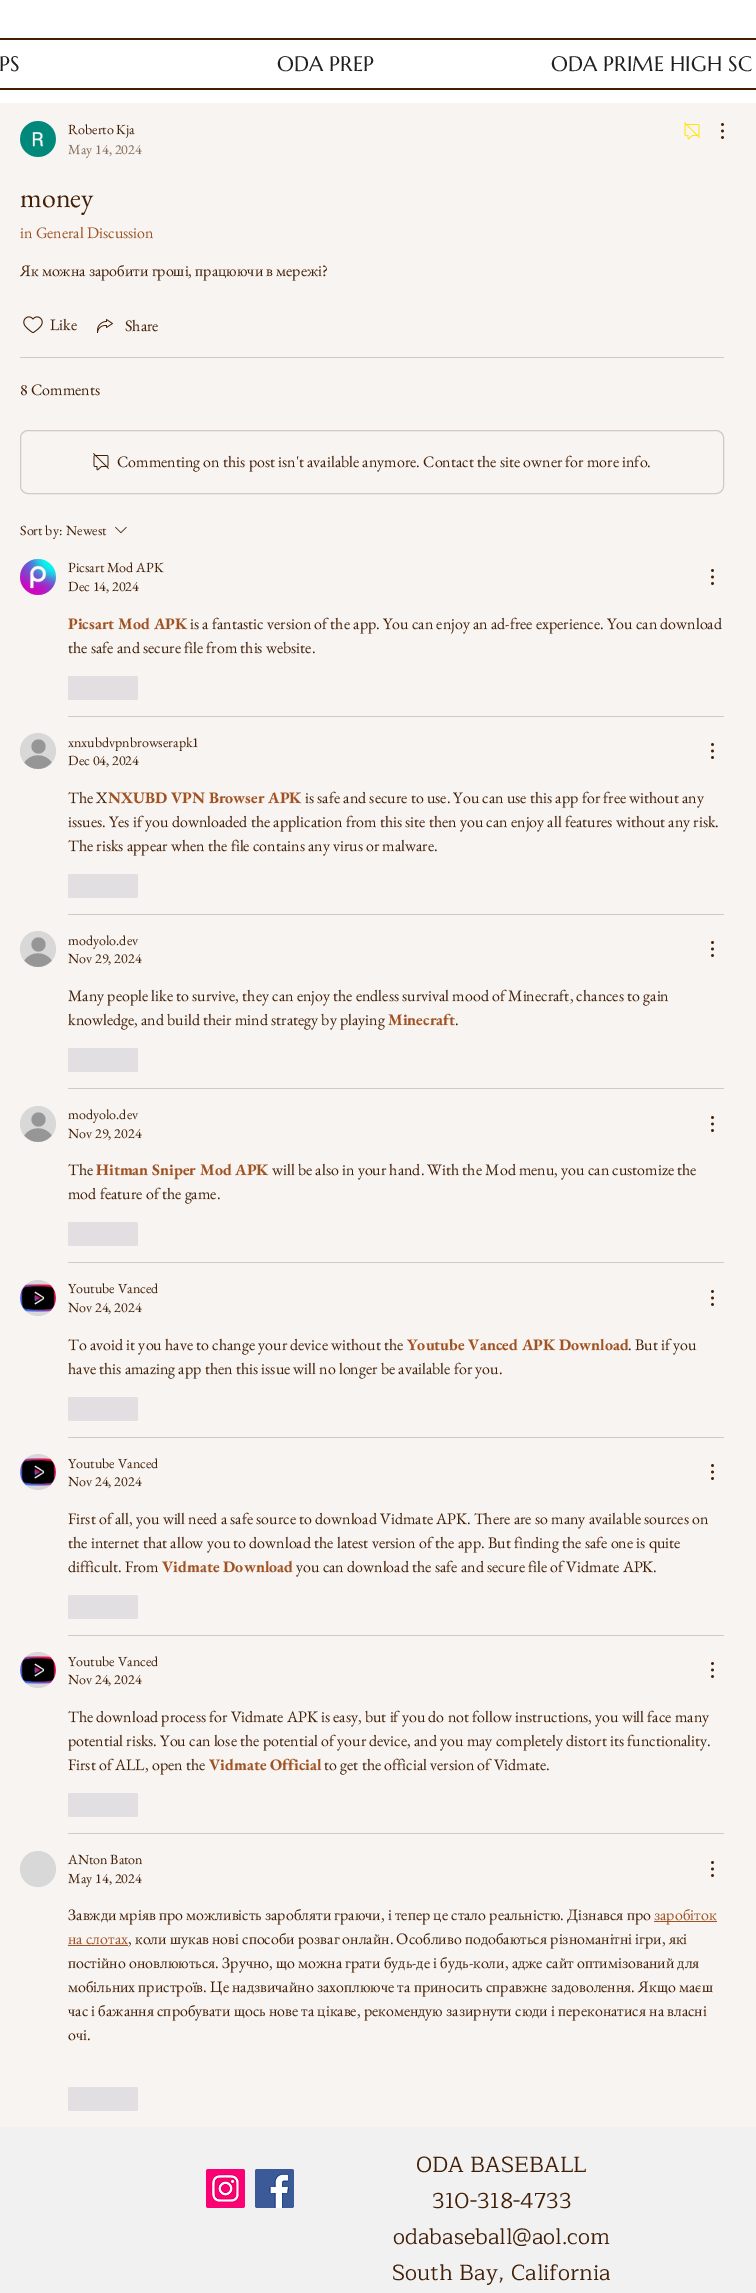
%!PS-Adobe-3.0
%%BoundingBox: 0 0 756 2293
%%LanguageLevel: 3
%%Pages: 1
%%EndComments
%%BeginProlog
/setink { dup -16 bitshift 255 div exch dup -8 bitshift 255 and 255 div exch 255 and 255 div setrgbcolor } def
/usefont { [ exch dup neg 0 0 3 -1 roll 0 0 ] selectfont } def
/disc { newpath 0 360 arc closepath } def
/rrect { 5 dict begin { /r /h /w /y /x } { exch def } forall
  x r add y moveto x w add y 2 copy h add r arct x w add y h add x 1 index r arct
  x y h add x y r arct x y 2 copy exch w add exch r arct closepath end } def
/drawimage { 5 dict begin { /h /w /y /x /name } { exch def } forall
  gsave x y translate w h scale
  w h 8 [w 0 0 h 0 0] name (r) file false 3 colorimage grestore end } def
%%EndProlog
%%BeginSetup
<< /PageSize [756 2293] >> setpagedevice
%%EndSetup
%%Page: 1 1
0 2293 translate 1 -1 scale
4 setmiterlimit
16#F8F4F1 setink
0 0 756 2293 rectfill
[
    [0 0 756 103 16#FFFFFF]
    [0 38 756 2 16#411E06]
    [0 88 756 2 16#411E06]
] { aload pop setink rectfill } forall
/Marcellus-Regular 21 usefont
16#202020 setink
[
    [(PS) -1 71]
    [(ODA PREP) 277 71]
    [(ODA PRIME HIGH SC) 551 71]
] { aload pop moveto show } forall
(img1.raw) 20 121 36 36 drawimage
/EBGaramond-Regular 14 usefont
16#411E06 setink
68 134 moveto (Roberto Kja) show
16#836B5B setink
68 154 moveto (May 14, 2024) show
(img2.raw) 684 122 16 18 drawimage
(img3.raw) 721 123 3 16 drawimage
/EBGaramond-Regular 28 usefont
16#411E06 setink
20 207 moveto (money) show
/EBGaramond-Regular 16 usefont
16#A05222 setink
20 238 moveto (in General Discussion) show
16#411E06 setink
20 276 moveto (Як можна заробити гроші, працюючи в мережі?) show
(img4.raw) 23 316 20 18 drawimage
50 330 moveto (Like) show
(img5.raw) 97 319 16 14 drawimage
125 331 moveto (Share) show
16#D3C9C2 setink
20 357 704 1 rectfill
16#411E06 setink
20 395 moveto (8 Comments) show
16#D3C9C2 setink
20.5 430.5 703 63 7.5 rrect stroke
(img6.raw) 93 453 16 18 drawimage
16#411E06 setink
117 467 moveto (Commenting on this post isn't available anymore. Contact the site owner for more info.) show
/EBGaramond-Regular 14 usefont
20 535 moveto (Sort by:) show
66 535 moveto (Newest) show
(img7.raw) 115 526 12 8 drawimage
(img8.raw) 20 559 36 36 drawimage
68 572 moveto (Picsart Mod APK) show
68 591 moveto (Dec 14, 2024) show
(img9.raw) 711 569 3 16 drawimage
/EBGaramond-Bold 16 usefont
16#A05222 setink
68 629 moveto (Picsart Mod APK) show
/EBGaramond-Regular 16 usefont
16#411E06 setink
190 629 moveto (is a fantastic version of the app. You can enjoy an ad-free experience. You can download) show
68 653 moveto (the safe and secure file from this website.) show
16#E1DFE2 setink
68 676 70 24 2 rrect fill
16#D3C9C2 setink
68 716 656 1 rectfill
16#D8D8D8 setink
38 751 18 disc fill
16#969696 setink
38.5 746.5 7 disc fill
51.5 762.5 moveto 44.5 771 31.5 771 24.5 762.5 curveto 30.5 753 45.5 753 51.5 762.5 curveto closepath fill
/EBGaramond-Regular 14 usefont
16#411E06 setink
68 747 moveto (xnxubdvpnbrowserapk1) show
68 765 moveto (Dec 04, 2024) show
(img9.raw) 711 743 3 16 drawimage
/EBGaramond-Regular 16 usefont
68 803 moveto (The X) show
/EBGaramond-Bold 16 usefont
16#A05222 setink
108 803 moveto (NXUBD VPN Browser APK) show
/EBGaramond-Regular 16 usefont
16#411E06 setink
[
    [(is safe and secure to use. You can use this app for free without any) 305 803]
    [(issues. Yes if you downloaded the application from this site then you can enjoy all features without any risk.) 68 827]
    [(The risks appear when the file contains any virus or malware.) 68 851]
] { aload pop moveto show } forall
16#E1DFE2 setink
68 874 70 24 2 rrect fill
16#D3C9C2 setink
68 914 656 1 rectfill
16#D8D8D8 setink
38 949 18 disc fill
16#969696 setink
38.5 944.5 7 disc fill
51.5 960.5 moveto 44.5 969 31.5 969 24.5 960.5 curveto 30.5 951 45.5 951 51.5 960.5 curveto closepath fill
/EBGaramond-Regular 14 usefont
16#411E06 setink
68 945 moveto (modyolo.dev) show
68 963 moveto (Nov 29, 2024) show
(img9.raw) 711 941 3 16 drawimage
/EBGaramond-Regular 16 usefont
68 1001 moveto (Many people like to survive, they can enjoy the endless survival mood of Minecraft, chances to gain) show
68 1025 moveto (knowledge, and build their mind strategy by playing) show
/EBGaramond-Bold 16 usefont
16#A05222 setink
388 1025 moveto (Minecraft) show
/EBGaramond-Regular 16 usefont
16#411E06 setink
455 1025 moveto (.) show
16#E1DFE2 setink
68 1048 70 24 2 rrect fill
16#D3C9C2 setink
68 1088 656 1 rectfill
16#D8D8D8 setink
38 1124 18 disc fill
16#969696 setink
38.5 1119.5 7 disc fill
51.5 1135.5 moveto 44.5 1144 31.5 1144 24.5 1135.5 curveto 30.5 1126 45.5 1126 51.5 1135.5 curveto closepath fill
/EBGaramond-Regular 14 usefont
16#411E06 setink
68 1119 moveto (modyolo.dev) show
68 1138 moveto (Nov 29, 2024) show
(img9.raw) 711 1116 3 16 drawimage
/EBGaramond-Regular 16 usefont
68 1175 moveto (The) show
/EBGaramond-Bold 16 usefont
16#A05222 setink
96 1175 moveto (Hitman Sniper Mod APK) show
/EBGaramond-Regular 16 usefont
16#411E06 setink
272 1175 moveto (will be also in your hand. With the Mod menu, you can customize the) show
68 1199 moveto (mod feature of the game.) show
16#E1DFE2 setink
68 1222 70 24 2 rrect fill
16#D3C9C2 setink
68 1262 656 1 rectfill
16#D8D8D8 setink
38 1298 18 disc fill
(img10.raw) 20 1284 36 28 drawimage
/EBGaramond-Regular 14 usefont
16#411E06 setink
68 1293 moveto (Youtube Vanced) show
68 1312 moveto (Nov 24, 2024) show
(img9.raw) 711 1290 3 16 drawimage
/EBGaramond-Regular 16 usefont
68 1350 moveto (To avoid it you have to change your device without the) show
/EBGaramond-Bold 16 usefont
16#A05222 setink
407 1350 moveto (Youtube Vanced APK Download) show
/EBGaramond-Regular 16 usefont
16#411E06 setink
628 1350 moveto (. But if you) show
68 1374 moveto (have this amazing app then this issue will no longer be available for you.) show
16#E1DFE2 setink
68 1397 70 24 2 rrect fill
16#D3C9C2 setink
68 1437 656 1 rectfill
16#D8D8D8 setink
38 1472 18 disc fill
(img10.raw) 20 1458 36 28 drawimage
/EBGaramond-Regular 14 usefont
16#411E06 setink
68 1468 moveto (Youtube Vanced) show
68 1486 moveto (Nov 24, 2024) show
(img9.raw) 711 1464 3 16 drawimage
/EBGaramond-Regular 16 usefont
[
    [(First of all, you will need a safe source to download Vidmate APK. There are so many available sources on) 68 1524]
    [(the internet that allow you to download the latest version of the app. But finding the safe one is quite) 68 1548]
    [(difficult. From) 68 1572]
] { aload pop moveto show } forall
/EBGaramond-Bold 16 usefont
16#A05222 setink
162 1572 moveto (Vidmate Download) show
/EBGaramond-Regular 16 usefont
16#411E06 setink
296 1572 moveto (you can download the safe and secure file of Vidmate APK.) show
16#E1DFE2 setink
68 1595 70 24 2 rrect fill
16#D3C9C2 setink
68 1635 656 1 rectfill
16#D8D8D8 setink
38 1670 18 disc fill
(img10.raw) 20 1656 36 28 drawimage
/EBGaramond-Regular 14 usefont
16#411E06 setink
68 1666 moveto (Youtube Vanced) show
68 1684 moveto (Nov 24, 2024) show
(img9.raw) 711 1662 3 16 drawimage
/EBGaramond-Regular 16 usefont
[
    [(The download process for Vidmate APK is easy, but if you do not follow instructions, you will face many) 68 1722]
    [(potential risks. You can lose the potential of your device, and you may completely distort its functionality.) 68 1746]
    [(First of ALL, open the) 68 1770]
] { aload pop moveto show } forall
/EBGaramond-Bold 16 usefont
16#A05222 setink
209 1770 moveto (Vidmate Official) show
/EBGaramond-Regular 16 usefont
16#411E06 setink
324 1770 moveto (to get the official version of Vidmate.) show
16#E1DFE2 setink
68 1793 70 24 2 rrect fill
16#D3C9C2 setink
68 1833 656 1 rectfill
16#D8D8D8 setink
38 1869 18 disc fill
/EBGaramond-Regular 14 usefont
16#411E06 setink
68 1864 moveto (ANton Baton) show
68 1883 moveto (May 14, 2024) show
(img9.raw) 711 1861 3 16 drawimage
/EBGaramond-Regular 16 usefont
68 1920 moveto (Завжди мріяв про можливість заробляти граючи, і тепер це стало реальністю. Дізнався про) show
16#A05222 setink
654 1921 63 1 rectfill
654 1920 moveto (заробіток) show
68 1944 moveto (на слотах) show
68 1945 60 1 rectfill
16#411E06 setink
[
    [(, коли шукав нові способи розваг онлайн. Особливо подобаються різноманітні ігри, які) 128 1944]
    [(постійно оновлюються. Зручно, що можна грати будь-де і будь-коли, адже сайт оптимізований для) 68 1968]
    [(мобільних пристроїв. Це надзвичайно захоплююче та приносить справжнє задоволення. Якщо маєш) 68 1992]
    [(час і бажання спробувати щось нове та цікаве, рекомендую зазирнути сюди і переконатися на власні) 68 2016]
    [(очі.) 68 2040]
] { aload pop moveto show } forall
16#E1DFE2 setink
68 2087 70 24 2 rrect fill
16#F2F1F1 setink
0 2127 756 166 rectfill
(img11.raw) 206 2169 39 39 drawimage
(img12.raw) 255 2169 39 39 drawimage
/Maitree-Regular 22 usefont
16#411E06 setink
[
    [(ODA BASEBALL) 416 2172]
    [(310-318-4733) 432 2208]
    [(odabaseball@aol.com) 393 2244]
    [(South Bay, California) 392 2280]
] { aload pop moveto show } forall
showpage
%%EOF
